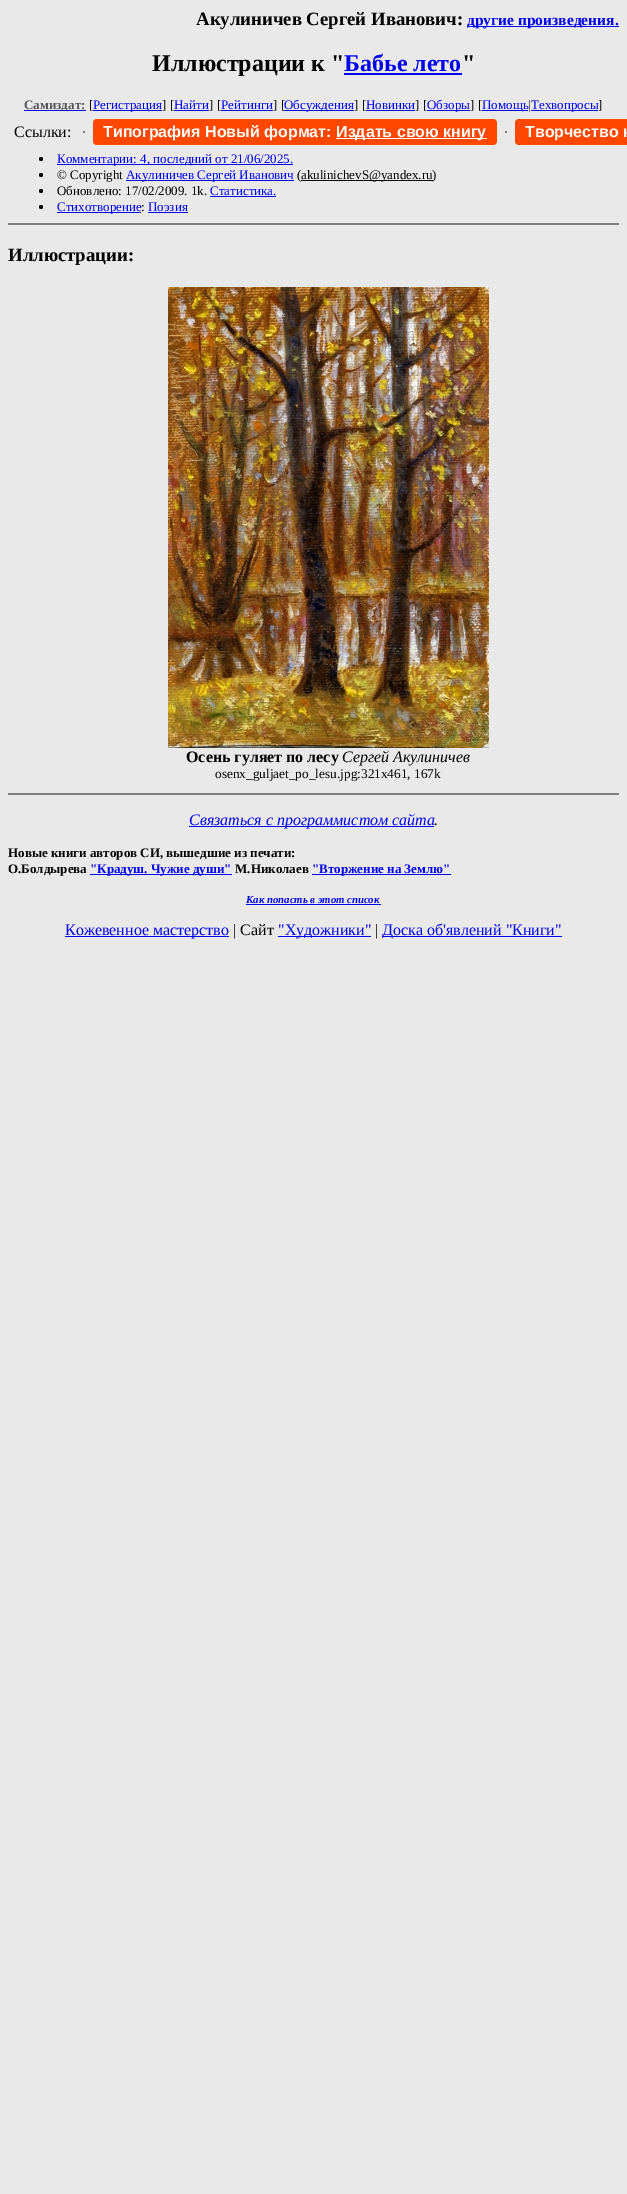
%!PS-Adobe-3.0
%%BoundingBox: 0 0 627 2194
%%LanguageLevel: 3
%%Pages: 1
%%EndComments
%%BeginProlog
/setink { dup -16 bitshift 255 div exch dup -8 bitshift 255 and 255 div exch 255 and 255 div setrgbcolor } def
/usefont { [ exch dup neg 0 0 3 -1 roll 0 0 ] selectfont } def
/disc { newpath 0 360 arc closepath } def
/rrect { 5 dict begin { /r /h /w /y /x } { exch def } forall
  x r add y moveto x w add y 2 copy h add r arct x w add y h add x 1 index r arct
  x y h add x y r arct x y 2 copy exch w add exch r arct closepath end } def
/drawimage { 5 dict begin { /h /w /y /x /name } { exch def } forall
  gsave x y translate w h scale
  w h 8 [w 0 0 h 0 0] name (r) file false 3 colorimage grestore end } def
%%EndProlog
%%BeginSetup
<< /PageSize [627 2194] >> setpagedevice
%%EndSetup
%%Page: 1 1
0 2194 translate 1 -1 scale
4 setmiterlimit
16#E9E9E9 setink
0 0 627 2194 rectfill
/LiberationSerif-Bold 18.75 usefont
16#000000 setink
196 25 moveto (Акулиничев Сергей Иванович:) show
16#0000EE setink
467 26 152 1 rectfill
/LiberationSerif-Bold 15.5 usefont
467 25 moveto (другие произведения.) show
/LiberationSerif-Bold 24 usefont
16#000000 setink
152 71 moveto (Иллюстрации к ") show
16#0000EE setink
344 71 moveto (Бабье лето) show
344 73 118 2 rectfill
16#000000 setink
462 71 moveto (") show
16#0000EE setink
24 110 62 1 rectfill
/LiberationSerif-Bold 13 usefont
16#555555 setink
24 109 moveto (Самиздат:) show
/LiberationSerif-Regular 13 usefont
16#000000 setink
89 109 moveto ([) show
16#0000EE setink
93 110 69 1 rectfill
93 109 moveto (Регистрация) show
16#000000 setink
162 109 moveto (] [) show
16#0000EE setink
174 110 35 1 rectfill
174 109 moveto (Найти) show
16#000000 setink
209 109 moveto (] [) show
16#0000EE setink
221 110 52 1 rectfill
221 109 moveto (Рейтинги) show
16#000000 setink
273 109 moveto (] [) show
16#0000EE setink
284 110 70 1 rectfill
284 109 moveto (Обсуждения) show
16#000000 setink
354 109 moveto (] [) show
16#0000EE setink
366 110 49 1 rectfill
366 109 moveto (Новинки) show
16#000000 setink
415 109 moveto (] [) show
16#0000EE setink
427 110 43 1 rectfill
427 109 moveto (Обзоры) show
16#000000 setink
470 109 moveto (] [) show
16#0000EE setink
482 110 46 1 rectfill
482 109 moveto (Помощь) show
16#000000 setink
528 109 moveto (|) show
16#0000EE setink
531 110 67 1 rectfill
531 109 moveto (Техвопросы) show
16#000000 setink
598 109 moveto (]) show
/LiberationSerif-Regular 16 usefont
14 137 moveto (Ссылки:) show
16#808080 setink
83 131 2 2 rectfill
16#FF4700 setink
93 119 404 26 4 rrect fill
/LiberationSans-Bold 16 usefont
16#FFFFFF setink
103 137 moveto (Типография Новый формат:) show
336 138 151 1 rectfill
336 137 moveto (Издать свою книгу) show
16#808080 setink
505 131 2 2 rectfill
16#FF4700 setink
515 119 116 26 4 rrect fill
16#FFFFFF setink
525 137 moveto (Творчество к) show
16#000000 setink
41 159 2 disc fill
16#0000EE setink
57 164 236 1 rectfill
/LiberationSerif-Regular 13 usefont
57 163 moveto (Комментарии: 4, последний от 21/06/2025.) show
16#000000 setink
41 175 2 disc fill
57 179 moveto (© Copyright) show
16#0000EE setink
126 180 168 1 rectfill
126 179 moveto (Акулиничев Сергей Иванович) show
16#000000 setink
297 179 moveto (\() show
301 180 132 1 rectfill
301 179 moveto (akulinichevS@yandex.ru\)) show
41 191 2 disc fill
57 195 moveto (Обновлено: 17/02/2009. 1k.) show
16#0000EE setink
210 195 moveto (Статистика.) show
210 196 66 1 rectfill
16#000000 setink
41 207 2 disc fill
16#0000EE setink
57 212 84 1 rectfill
57 211 moveto (Стихотворение) show
16#000000 setink
141 211 moveto (:) show
16#0000EE setink
148 211 moveto (Поэзия) show
148 212 40 1 rectfill
16#808080 setink
8 223 611 2 rectfill
/LiberationSerif-Bold 18.75 usefont
16#000000 setink
8 261 moveto (Иллюстрации:) show
(img1.raw) 168 287 321 461 drawimage
/LiberationSerif-Bold 16 usefont
186 762 moveto (Осень гуляет по лесу) show
/LiberationSerif-Italic 16 usefont
342 762 moveto (Сергей Акулиничев) show
/LiberationSerif-Regular 13.3 usefont
215 778 moveto (osenx_guljaet_po_lesu.jpg:321x461, 167k) show
16#808080 setink
8 793 611 2 rectfill
16#0000EE setink
189 826 245 1 rectfill
/LiberationSerif-Italic 16 usefont
189 825 moveto (Связаться с программистом сайта) show
16#000000 setink
434 825 moveto (.) show
/LiberationSerif-Bold 13 usefont
8 857 moveto (Новые книги авторов СИ, вышедшие из печати:) show
8 873 moveto (О.Болдырева) show
16#0000EE setink
90 874 142 1 rectfill
90 873 moveto ("Крадуш. Чужие души") show
16#000000 setink
235 873 moveto (М.Николаев) show
16#0000EE setink
312 874 139 1 rectfill
312 873 moveto ("Вторжение на Землю") show
/LiberationSerif-BoldItalic 10.75 usefont
246 903 moveto (Как попасть в этoт список) show
246 904 135 1 rectfill
65 936 164 1 rectfill
/LiberationSerif-Regular 16 usefont
65 935 moveto (Кожевенное мастерство) show
16#000000 setink
233 935 moveto (| Сайт) show
16#0000EE setink
278 936 93 1 rectfill
278 935 moveto ("Художники") show
16#000000 setink
375 935 moveto (|) show
16#0000EE setink
382 936 180 1 rectfill
382 935 moveto (Доска об'явлений "Книги") show
showpage
%%EOF
